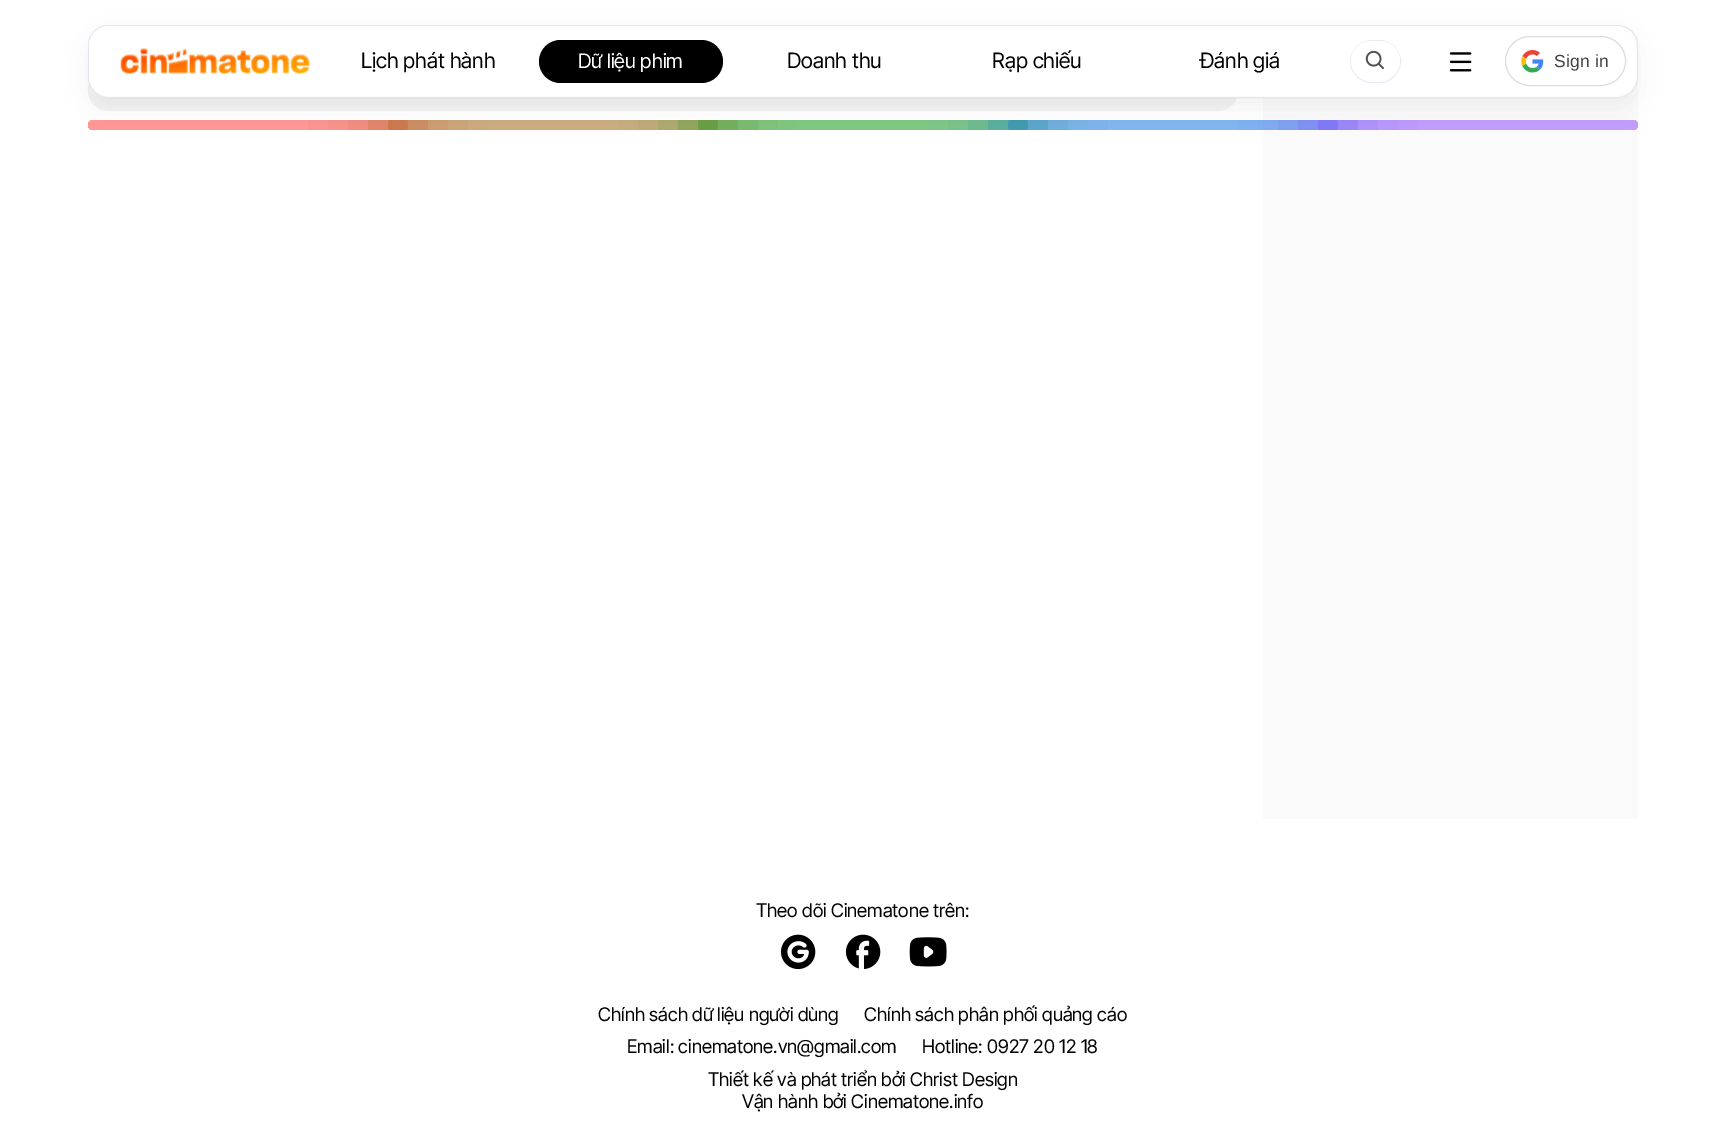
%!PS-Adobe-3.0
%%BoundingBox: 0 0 1725 1147
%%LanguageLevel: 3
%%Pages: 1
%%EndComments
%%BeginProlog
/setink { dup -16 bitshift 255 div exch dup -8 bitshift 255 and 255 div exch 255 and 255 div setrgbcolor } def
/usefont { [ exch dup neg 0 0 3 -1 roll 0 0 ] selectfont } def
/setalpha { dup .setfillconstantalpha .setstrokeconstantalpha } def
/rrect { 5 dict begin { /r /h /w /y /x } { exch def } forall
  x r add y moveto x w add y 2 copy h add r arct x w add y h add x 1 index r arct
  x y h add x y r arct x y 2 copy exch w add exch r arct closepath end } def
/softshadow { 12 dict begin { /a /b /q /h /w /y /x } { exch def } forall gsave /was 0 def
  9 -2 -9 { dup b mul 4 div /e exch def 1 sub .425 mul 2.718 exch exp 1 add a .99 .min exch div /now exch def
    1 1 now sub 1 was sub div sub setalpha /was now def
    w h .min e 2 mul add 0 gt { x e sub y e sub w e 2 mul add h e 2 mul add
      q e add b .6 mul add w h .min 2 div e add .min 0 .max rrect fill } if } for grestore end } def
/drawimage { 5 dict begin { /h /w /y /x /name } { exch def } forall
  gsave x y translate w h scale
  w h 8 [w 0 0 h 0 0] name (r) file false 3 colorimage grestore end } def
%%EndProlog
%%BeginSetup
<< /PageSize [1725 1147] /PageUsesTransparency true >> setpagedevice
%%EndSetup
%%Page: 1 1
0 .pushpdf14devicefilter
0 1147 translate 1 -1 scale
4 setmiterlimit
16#FFFFFF setink
0 0 1725 1147 rectfill
16#F3F3F3 setink
88 69 1150 42 20 rrect fill
gsave
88 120 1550 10 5 rrect clip newpath
16#FF2D2D setink
88 120 310 10 0 40 1 softshadow
16#975800 setink
398 120 310 10 0 40 1 softshadow
16#008F04 setink
708 120 310 10 0 40 1 softshadow
grestore
16#FAFAFA setink
1263 78 375 741 rectfill
gsave
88 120 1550 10 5 rrect clip newpath
16#006CDF setink
1018 120 310 10 0 40 1 softshadow
16#863CFF setink
1328 120 310 10 0 40 1 softshadow
grestore
16#000000 setink
88 35 1550 73 20 12.5 0.05 softshadow
16#FAFAFA setink
88 25 1550 73 20 rrect fill
0.09 setalpha
16#01238B setink
88.5 25.5 1549 72 19.5 rrect stroke
1 setalpha
16#FFFFFF setink
89 26 1547 70 20 rrect fill
(img1.raw) 120 48 190 26 drawimage
/InterTight-Regular 21.25 usefont
16#000000 setink
361 68 moveto (Lịch phát hành) show
539 40 184 43 21.5 rrect fill
/InterTight-Regular 20 usefont
16#FFFFFF setink
578 68 moveto (Dữ liệu phim) show
/InterTight-Regular 21.25 usefont
16#000000 setink
[
    [(Doanh thu) 787 68]
    [(Rạp chiếu) 992 68]
    [(Đánh giá) 1200 68]
] { aload pop moveto show } forall
16#E8EBF5 setink
1350.5 40.5 50 42 21 rrect stroke
16#FFFFFF setink
1351 41 49 40 20 rrect fill
(img2.raw) 1365 50 20 20 drawimage
(img3.raw) 1449 52 23 20 drawimage
16#DADCE0 setink
1505.5 36.5 120 49 24.5 rrect stroke
(img4.raw) 1521 50 23 23 drawimage
/LiberationSans-Regular 17.5 usefont
16#3C4043 setink
1554 67 moveto 0.25 0 (Sign in) ashow
/InterTight-Regular 18.75 usefont
16#000000 setink
756 917 moveto (Theo dõi Cinematone trên:) show
(img5.raw) 780 934 36 36 drawimage
(img6.raw) 845 934 36 35 drawimage
(img7.raw) 909 937 38 30 drawimage
[
    [(Chính sách dữ liệu người dùng) 598 1021]
    [(Chính sách phân phối quảng cáo) 864 1021]
    [(Email: cinematone.vn@gmail.com) 627 1053]
    [(Hotline: 0927 20 12 18) 922 1053]
    [(Thiết kế và phát triển bởi Christ Design) 708 1086]
    [(Vận hành bởi Cinematone.info) 742 1108]
] { aload pop moveto show } forall
.poppdf14devicefilter showpage
%%EOF
